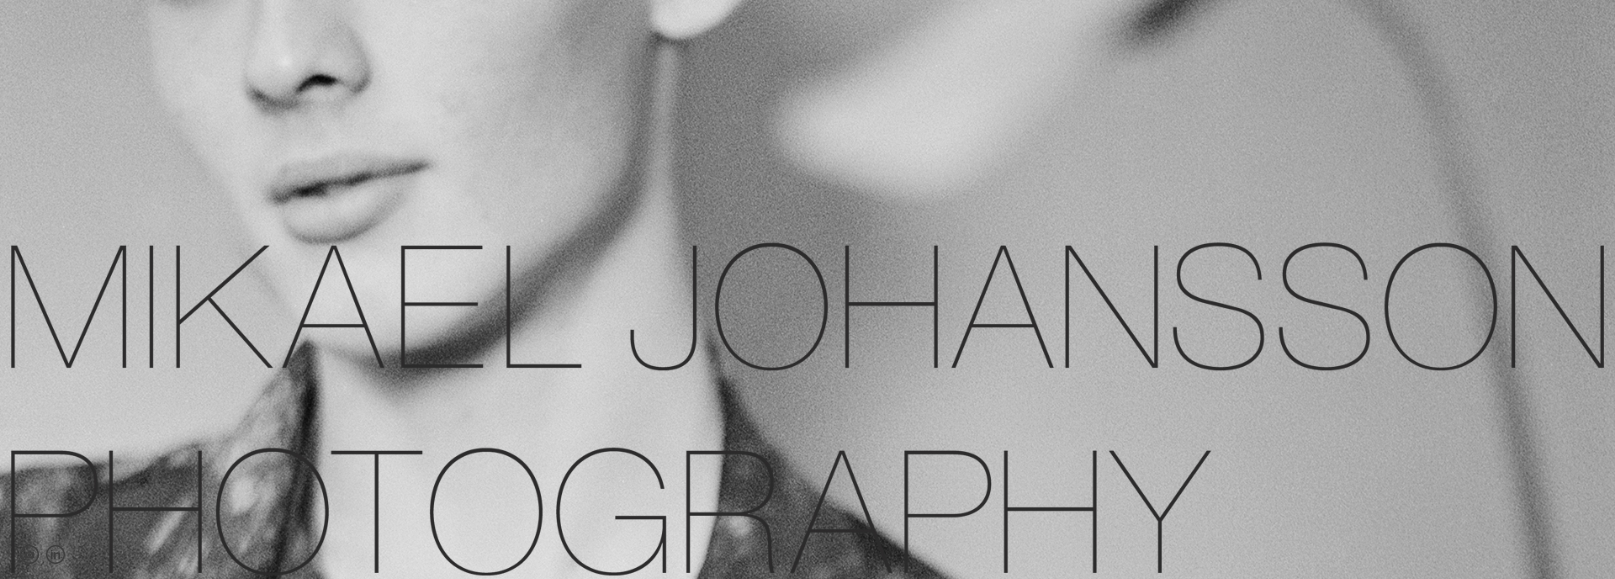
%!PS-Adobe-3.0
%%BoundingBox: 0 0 1615 579
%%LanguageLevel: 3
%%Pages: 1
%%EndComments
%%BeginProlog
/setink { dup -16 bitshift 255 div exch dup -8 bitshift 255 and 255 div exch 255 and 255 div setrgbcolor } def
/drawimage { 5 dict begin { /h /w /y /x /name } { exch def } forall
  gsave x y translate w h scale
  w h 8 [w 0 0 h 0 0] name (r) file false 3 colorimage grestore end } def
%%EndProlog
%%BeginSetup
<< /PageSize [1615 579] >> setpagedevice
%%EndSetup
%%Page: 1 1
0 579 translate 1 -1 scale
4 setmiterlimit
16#FFFFFF setink
0 0 1615 579 rectfill
(img1.raw) 0 0 1615 579 drawimage
(img2.raw) 20 545 19 19 drawimage
(img3.raw) 46 545 19 19 drawimage
showpage
%%EOF
